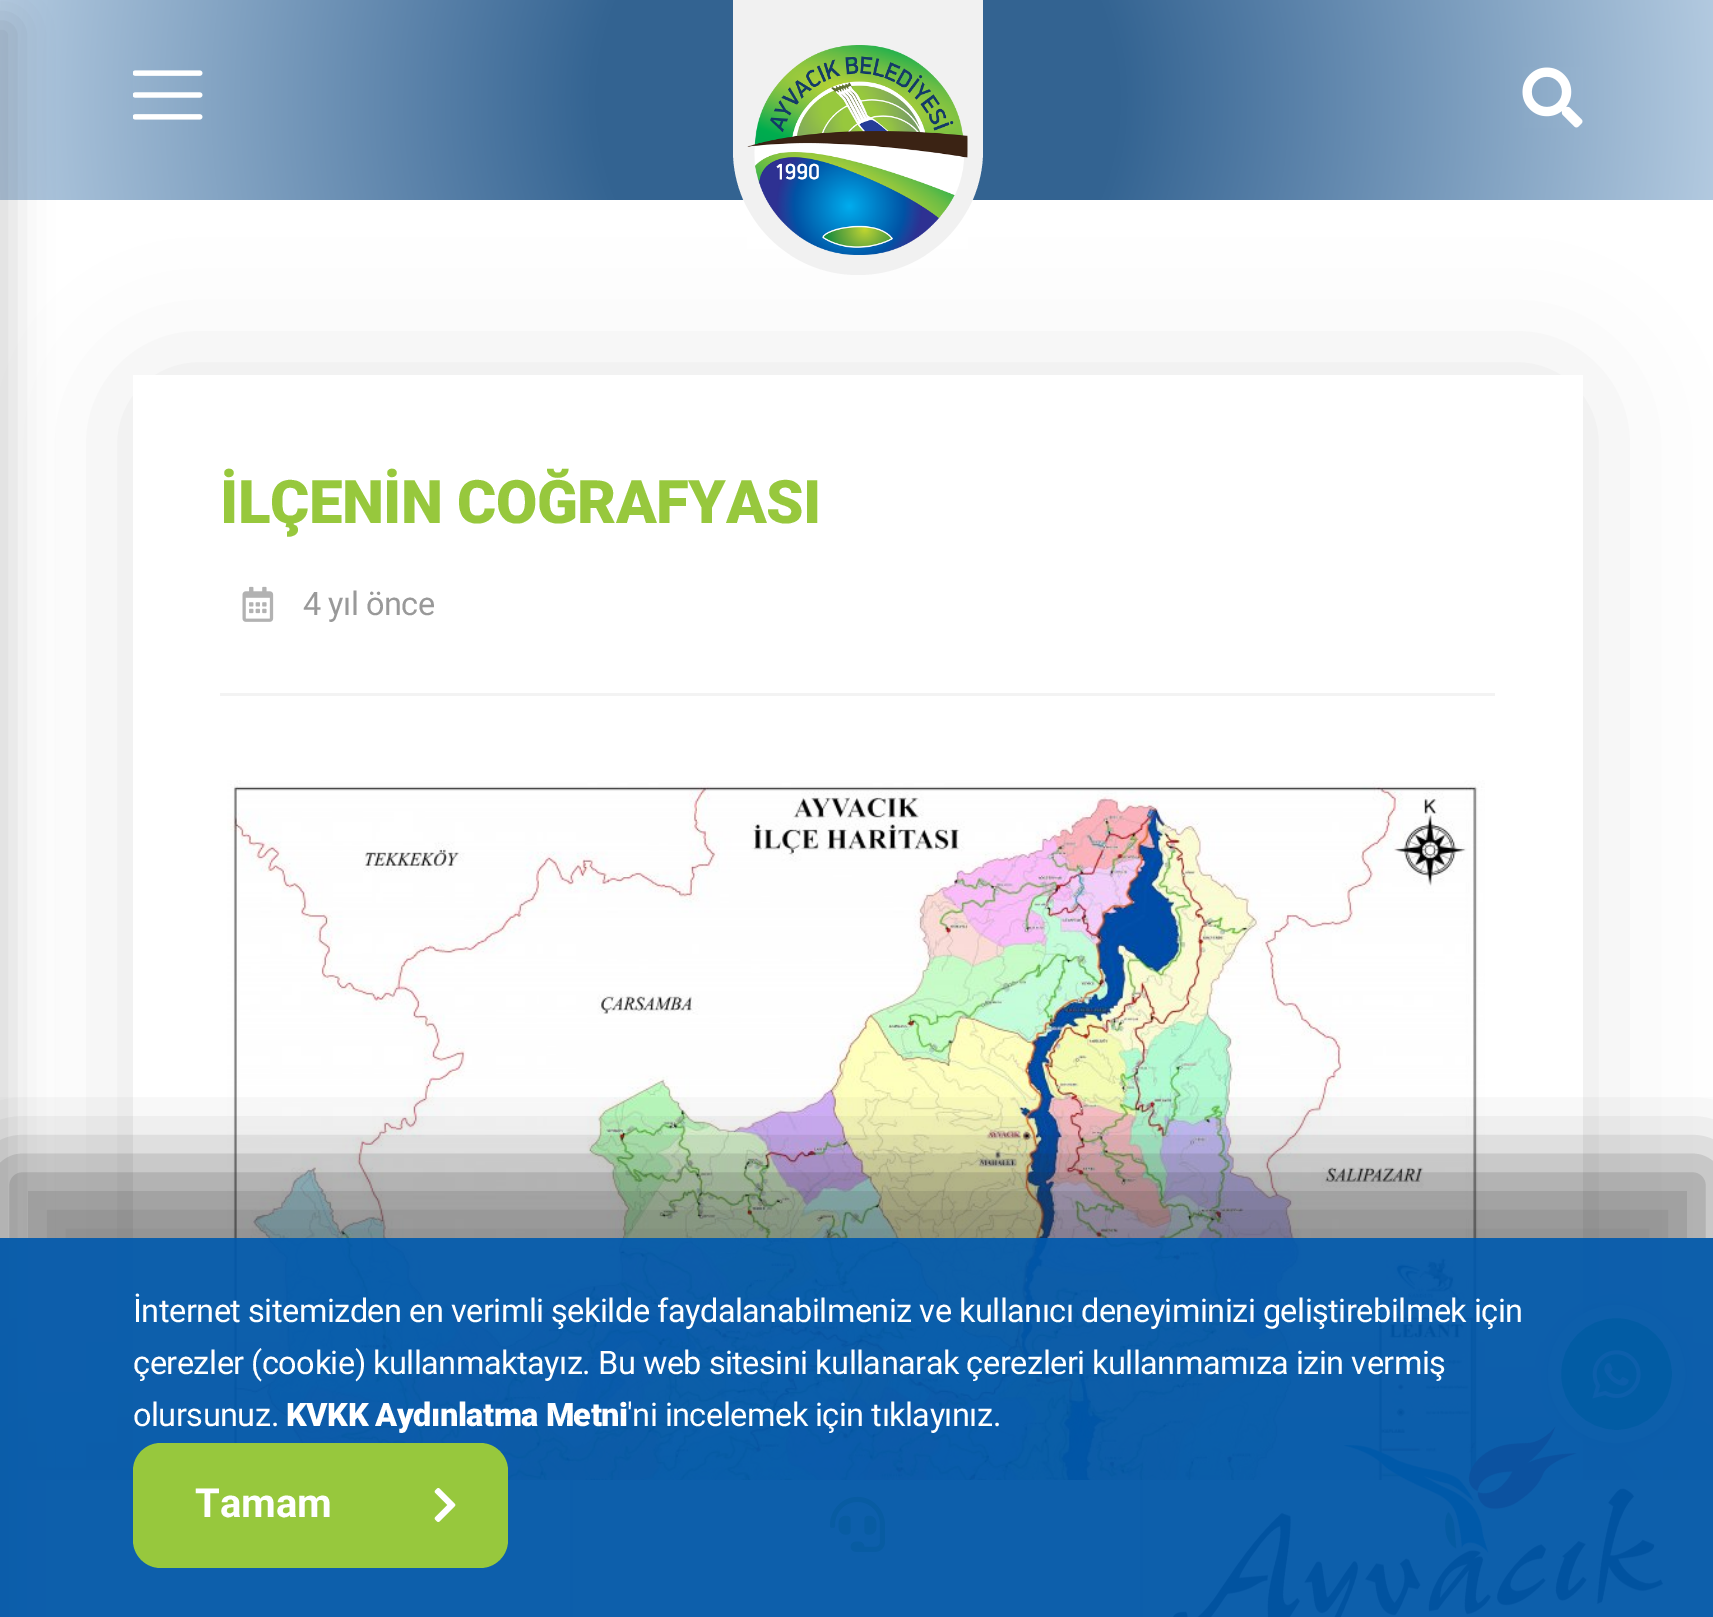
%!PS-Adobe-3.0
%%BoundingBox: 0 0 1713 1617
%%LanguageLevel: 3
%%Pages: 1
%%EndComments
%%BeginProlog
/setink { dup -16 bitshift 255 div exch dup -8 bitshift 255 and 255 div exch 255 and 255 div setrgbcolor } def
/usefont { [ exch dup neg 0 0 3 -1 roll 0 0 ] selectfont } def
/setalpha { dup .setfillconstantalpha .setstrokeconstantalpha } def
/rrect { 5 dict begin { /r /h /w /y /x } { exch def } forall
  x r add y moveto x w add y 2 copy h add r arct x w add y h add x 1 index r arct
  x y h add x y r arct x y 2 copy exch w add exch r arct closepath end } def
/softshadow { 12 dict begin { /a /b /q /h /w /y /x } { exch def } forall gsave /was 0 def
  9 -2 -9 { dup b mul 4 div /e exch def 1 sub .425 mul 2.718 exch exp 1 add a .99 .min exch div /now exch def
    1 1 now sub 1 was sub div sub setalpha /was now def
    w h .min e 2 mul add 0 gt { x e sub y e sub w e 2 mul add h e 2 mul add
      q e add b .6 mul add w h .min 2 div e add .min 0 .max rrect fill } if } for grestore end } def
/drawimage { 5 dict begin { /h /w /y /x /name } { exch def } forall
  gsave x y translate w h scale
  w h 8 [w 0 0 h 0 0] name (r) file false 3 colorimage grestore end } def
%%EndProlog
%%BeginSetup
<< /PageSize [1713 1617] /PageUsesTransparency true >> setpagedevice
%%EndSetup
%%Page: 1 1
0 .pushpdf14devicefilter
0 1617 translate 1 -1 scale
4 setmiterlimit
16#FFFFFF setink
0 0 1713 1617 rectfill
gsave
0 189 moveto 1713 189 lineto 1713 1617 lineto 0 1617 lineto closepath 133 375 moveto 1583 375 lineto 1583 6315 lineto 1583 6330.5 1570.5 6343 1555 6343 curveto 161 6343 lineto 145.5 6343 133 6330.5 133 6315 curveto closepath eoclip newpath
16#000000 setink
133 378 1450 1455 28 62.5 0.1 softshadow
grestore
gsave 0 0 moveto 1713 0 lineto 1713 200 lineto 0 200 lineto closepath clip newpath 858 100 translate 863 863 scale
<< /ShadingType 3 /ColorSpace /DeviceRGB /Coords [0 0 0 0 0 1] /Extend [true true] /Function << /FunctionType 3 /Domain [0 1] /Functions [<< /FunctionType 2 /Domain [0 1] /C0 [0.2 0.388 0.569] /C1 [0.2 0.388 0.569] /N 1 >> << /FunctionType 2 /Domain [0 1] /C0 [0.2 0.388 0.569] /C1 [0.702 0.792 0.878] /N 1 >>] /Bounds [0.3] /Encode [0 1 0 1] >> >> shfill grestore
16#F1F1F1 setink
733 0 moveto 983 0 lineto 983 150 lineto 983 219 927 275 858 275 curveto 789 275 733 219 733 150 curveto closepath fill
(img1.raw) 747 45 221 210 drawimage
(img2.raw) 133 70 70 50 drawimage
(img3.raw) 1522 67 61 61 drawimage
0.75 setalpha
16#FFFFFF setink
1582 385 1 1095 rectfill
1 setalpha
(img5.raw) 227 780 1258 700 drawimage
16#666666 setink
0 1430 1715 138 0 50 0.15 softshadow
16#FFFFFF setink
0 1480 1713 137 rectfill
16#000000 setink
-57 25 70 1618 0 19 0.15 softshadow
16#F3F3F3 setink
220 693 1275 3 rectfill
/Roboto-Black 60 usefont
16#97C83D setink
220 523 moveto -0.5 0 (İLÇENİN COĞRAFYASI) ashow
(img4.raw) 242 586 32 36 drawimage
/Roboto-Regular 32.5 usefont
16#999999 setink
303 615 moveto -0.5 0 (4 yıl önce) ashow
16#F0F0F0 setink
570 1480 3 137 rectfill
1140 1480 3 137 rectfill
(img6.raw) 830 1496 55 56 drawimage
(img7.raw) 1173 1426 490 191 drawimage
16#000000 setink
1548 1305 137 138 68.5 6 0.15 softshadow
16#25D366 setink
1554.5 1311.5 124 125 62 rrect gsave fill grestore
16#FFFFFF setink
13 setlinewidth
stroke
(img9.raw) 1592 1350 49 49 drawimage
gsave
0 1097 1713 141 rectclip
16#222222 setink
0 1163 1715 380 0 37.5 0.5 softshadow
grestore
0.95 setalpha
16#0056A7 setink
0 1238 1713 379 rectfill
1 setalpha
16#FFFFFF setink
133 1322 moveto -0.5 0 (İnternet sitemizden en verimli şekilde faydalanabilmeniz ve kullanıcı deneyiminizi geliştirebilmek için) ashow
133 1374 moveto -0.5 0 (çerezler \(cookie\) kullanmaktayız. Bu web sitesini kullanarak çerezleri kullanmamıza izin vermiş) ashow
133 1426 moveto -0.5 0 (olursunuz.) ashow
/Roboto-Black 32.5 usefont
286 1426 moveto -0.5 0 (KVKK Aydınlatma Metni) ashow
/Roboto-Regular 32.5 usefont
627 1426 moveto -0.5 0 ('ni incelemek için tıklayınız.) ashow
16#97C83D setink
133 1443 375 125 28 rrect fill
/Roboto-Bold 40 usefont
16#FFFFFF setink
195 1517 moveto (Tamam) show
(img8.raw) 434 1488 22 34 drawimage
.poppdf14devicefilter showpage
%%EOF
